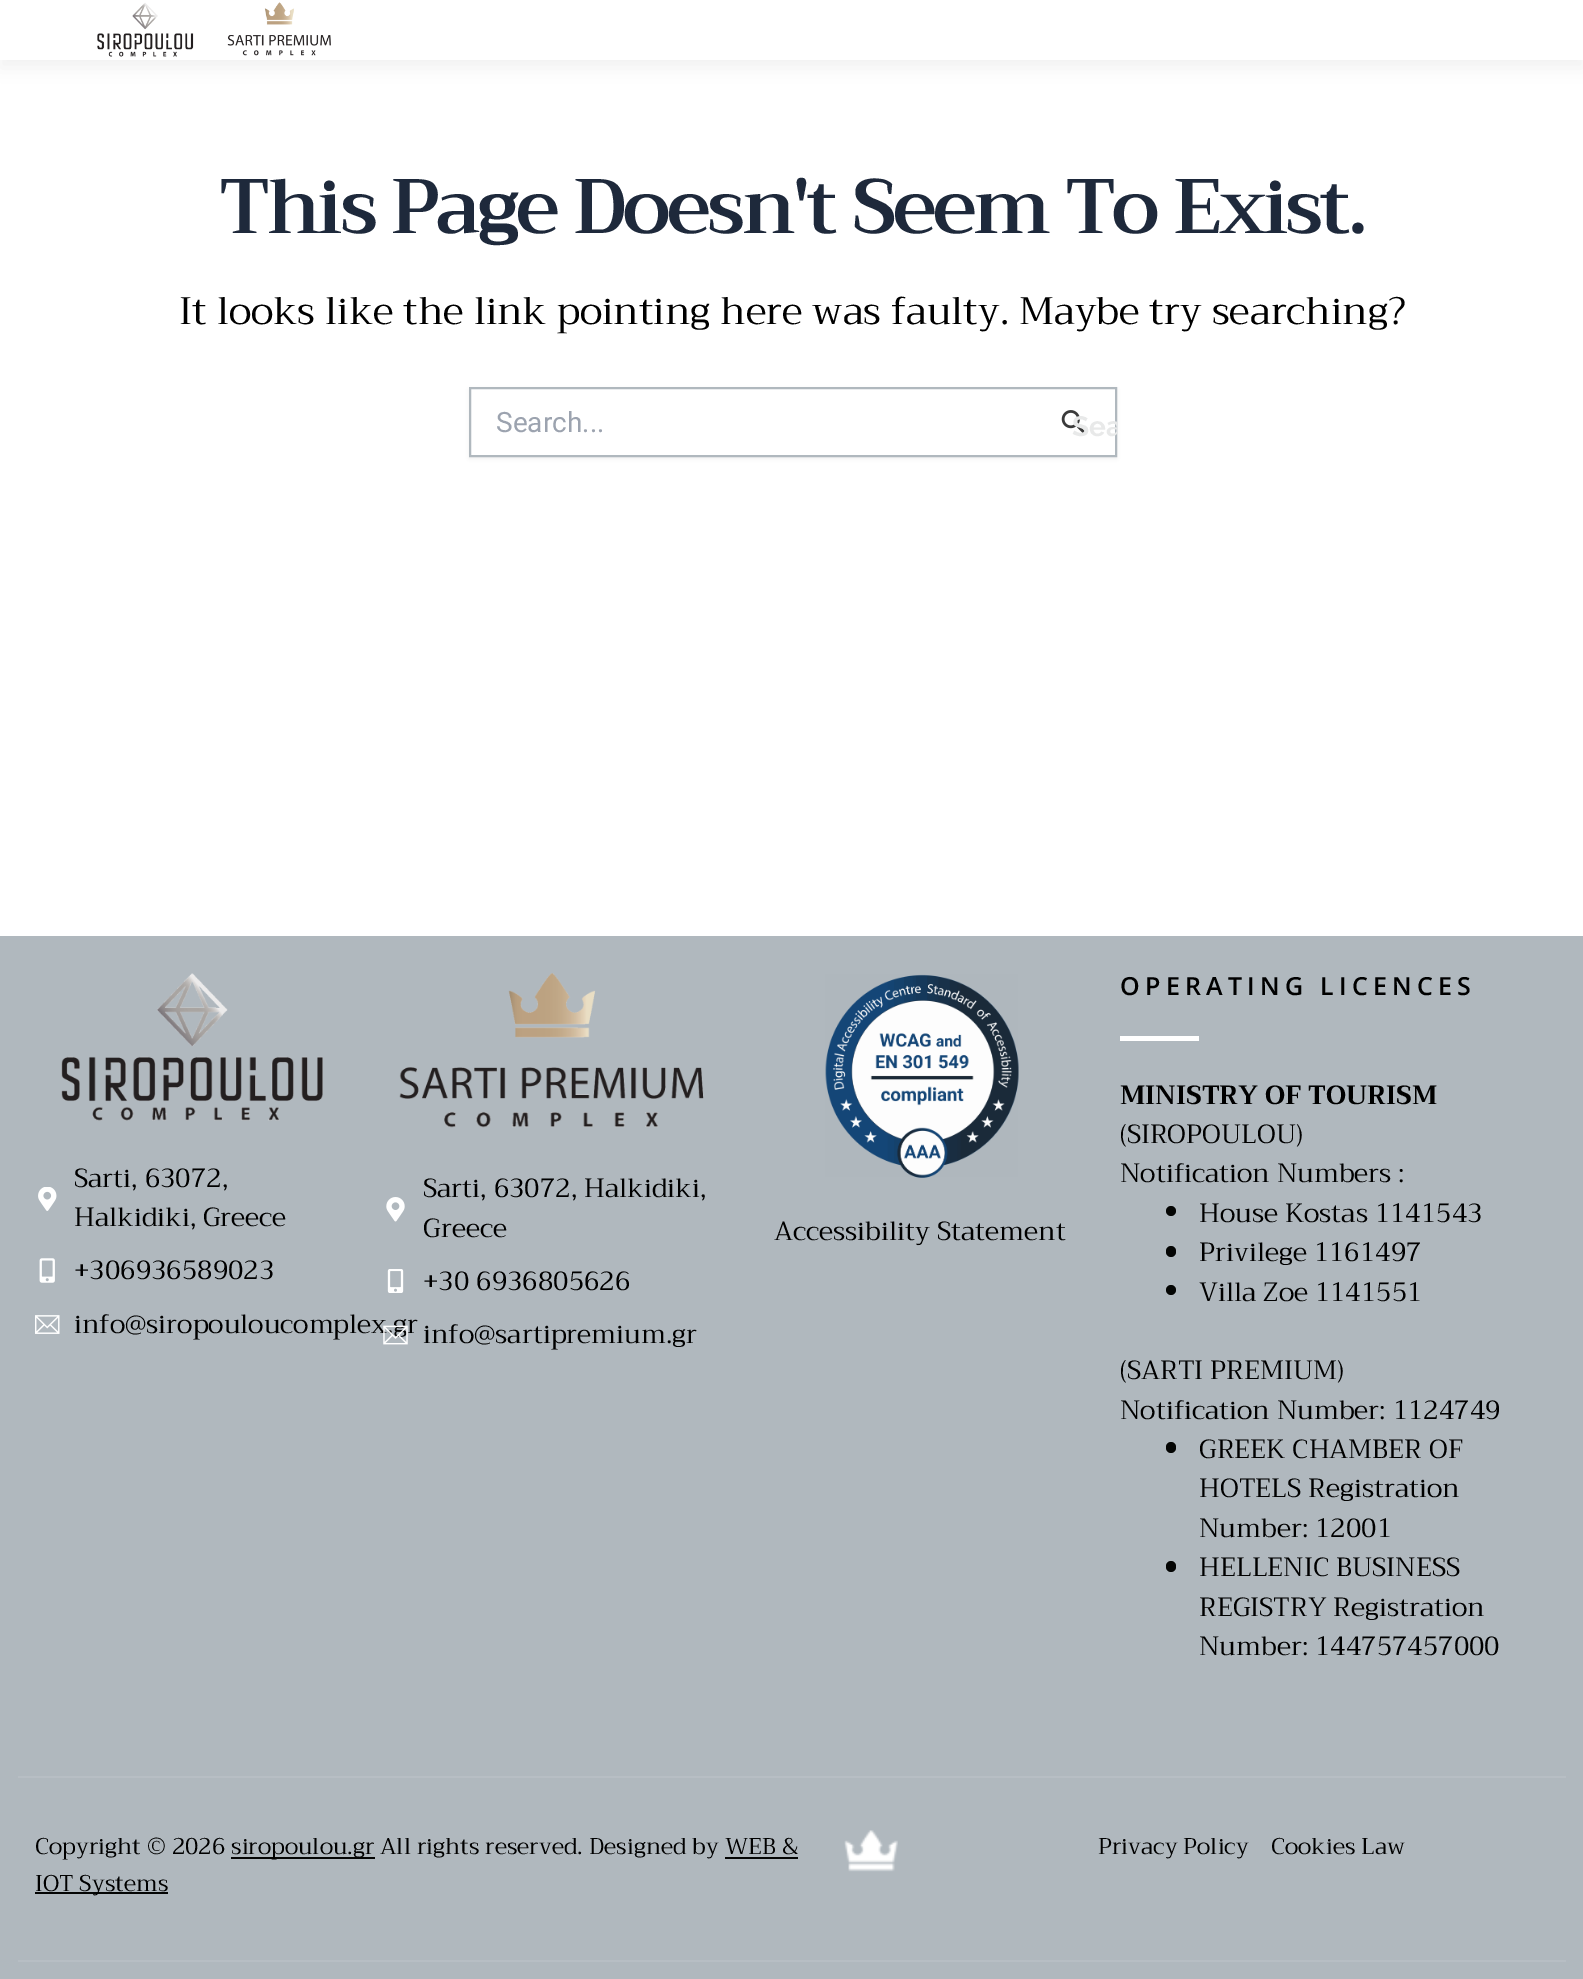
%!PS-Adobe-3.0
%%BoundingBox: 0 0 1583 1979
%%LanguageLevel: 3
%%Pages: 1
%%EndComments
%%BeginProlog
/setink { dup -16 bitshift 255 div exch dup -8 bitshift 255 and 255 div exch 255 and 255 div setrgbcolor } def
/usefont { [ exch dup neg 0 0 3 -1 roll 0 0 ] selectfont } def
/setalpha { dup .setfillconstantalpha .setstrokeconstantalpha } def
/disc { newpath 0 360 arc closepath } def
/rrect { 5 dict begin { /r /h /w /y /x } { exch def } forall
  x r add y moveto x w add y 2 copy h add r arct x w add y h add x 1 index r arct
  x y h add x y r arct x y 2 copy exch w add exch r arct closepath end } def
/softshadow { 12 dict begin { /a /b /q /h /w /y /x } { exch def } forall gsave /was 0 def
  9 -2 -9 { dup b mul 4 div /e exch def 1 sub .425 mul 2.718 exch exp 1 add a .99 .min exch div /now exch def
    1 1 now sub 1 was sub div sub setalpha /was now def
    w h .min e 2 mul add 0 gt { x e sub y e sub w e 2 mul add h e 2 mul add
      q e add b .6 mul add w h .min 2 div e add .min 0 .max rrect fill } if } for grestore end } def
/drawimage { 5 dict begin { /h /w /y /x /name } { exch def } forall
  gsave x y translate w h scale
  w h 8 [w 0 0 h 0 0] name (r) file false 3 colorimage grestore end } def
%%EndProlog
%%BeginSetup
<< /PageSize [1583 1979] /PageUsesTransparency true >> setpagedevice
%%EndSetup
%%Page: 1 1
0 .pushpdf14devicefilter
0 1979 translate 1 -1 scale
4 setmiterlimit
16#FFFFFF setink
0 0 1583 1979 rectfill
gsave
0 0 moveto 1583 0 lineto 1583 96 lineto 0 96 lineto closepath 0 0 moveto 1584 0 lineto 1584 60 lineto 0 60 lineto closepath eoclip newpath
16#000000 setink
0 9 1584 59 0 9 0.05 softshadow
grestore
(img1.raw) 97 2 234 55 drawimage
/Trirong-SemiBold 77 usefont
16#1E293B setink
219 233 moveto -3.5 0 (This Page Doesn't Seem To Exist.) ashow
/Trirong-Regular 38.3 usefont
16#000000 setink
179 324 moveto (It looks like the link pointing here was faulty. Maybe try searching?) show
469 389 648 70 0 2 0.05 softshadow
16#FFFFFF setink
470 388 moveto 1116 388 lineto 1116 456 lineto 470 456 lineto closepath gsave fill grestore
16#B0B8BE setink
2 setlinewidth
stroke
/Roboto-Regular 28 usefont
16#9CA3AF setink
496 432 moveto (Search...) show
(img2.raw) 1061 410 26 25 drawimage
gsave
1038 387 79 79 4 rrect clip newpath
/Raleway-Bold 28 usefont
16#E8E9E9 setink
1072 436 moveto (Sea) show
grestore
16#B0B8BE setink
0 936 1583 1043 rectfill
16#B7BEC4 setink
18 1776 1548 2 rectfill
(img3.raw) 61 973 262 148 drawimage
(img4.raw) 38 1187 19 24 drawimage
/Trirong-Regular 26.25 usefont
16#000000 setink
74 1187 moveto (Sarti, 63072,) show
74 1226 moveto (Halkidiki, Greece) show
(img5.raw) 39 1258 16 25 drawimage
74 1279 moveto (+306936589023) show
(img6.raw) 35 1315 25 19 drawimage
74 1333 moveto (info@siropouloucomplex.gr) show
(img7.raw) 399 973 305 155 drawimage
(img8.raw) 386 1197 19 25 drawimage
423 1197 moveto (Sarti, 63072, Halkidiki,) show
423 1237 moveto (Greece) show
(img9.raw) 387 1269 17 24 drawimage
423 1290 moveto (+30 6936805626) show
(img10.raw) 383 1325 25 20 drawimage
423 1343 moveto (info@sartipremium.gr) show
(img11.raw) 825 974 194 204 drawimage
774 1240 moveto (Accessibility Statement) show
/OpenSans-SemiBold 25 usefont
1120 995 moveto 5.25 0 (OPERATING LICENCES) ashow
16#FFFFFF setink
1120 1036 79 5 rectfill
/Trirong-Bold 26.25 usefont
16#000000 setink
1120 1104 moveto (MINISTRY OF TOURISM) show
/Trirong-Regular 26.25 usefont
1120 1143 moveto (\(SIROPOULOU\)) show
1120 1182 moveto (Notification Numbers :) show
16#040504 setink
1171 1211 5 disc fill
16#000000 setink
1199 1222 moveto (House Kostas 1141543) show
16#040504 setink
1166 1246 10 11 5 rrect fill
16#000000 setink
1199 1261 moveto (Privilege 1161497) show
16#040504 setink
1171 1290 5 disc fill
16#000000 setink
[
    [(Villa Zoe 1141551) 1199 1301]
    [(\(SARTI PREMIUM\)) 1120 1379]
    [(Notification Number: 1124749) 1120 1419]
] { aload pop moveto show } forall
16#040504 setink
1166 1442 10 11 5 rrect fill
16#000000 setink
[
    [(GREEK CHAMBER OF) 1199 1458]
    [(HOTELS Registration) 1199 1497]
    [(Number: 12001) 1199 1537]
] { aload pop moveto show } forall
16#040504 setink
1166 1561 10 11 5 rrect fill
16#000000 setink
[
    [(HELLENIC BUSINESS) 1199 1576]
    [(REGISTRY Registration) 1199 1616]
    [(Number: 144757457000) 1199 1655]
] { aload pop moveto show } forall
16#B7BEC4 setink
18 1960 1548 2 rectfill
/Trirong-Regular 22.75 usefont
16#000000 setink
35 1854 moveto (Copyright © 2026) show
16#040504 setink
231 1857 144 2 rectfill
16#000000 setink
[
    [(siropoulou.gr) 231 1854]
    [(All rights reserved. Designed by) 380 1854]
    [(WEB &) 725 1854]
] { aload pop moveto show } forall
16#040504 setink
725 1857 73 2 rectfill
35 1892 133 2 rectfill
16#000000 setink
35 1891 moveto (IOT Systems) show
(img12.raw) 844 1830 54 42 drawimage
1098 1854 moveto (Privacy Policy) show
1271 1854 moveto (Cookies Law) show
.poppdf14devicefilter showpage
%%EOF
